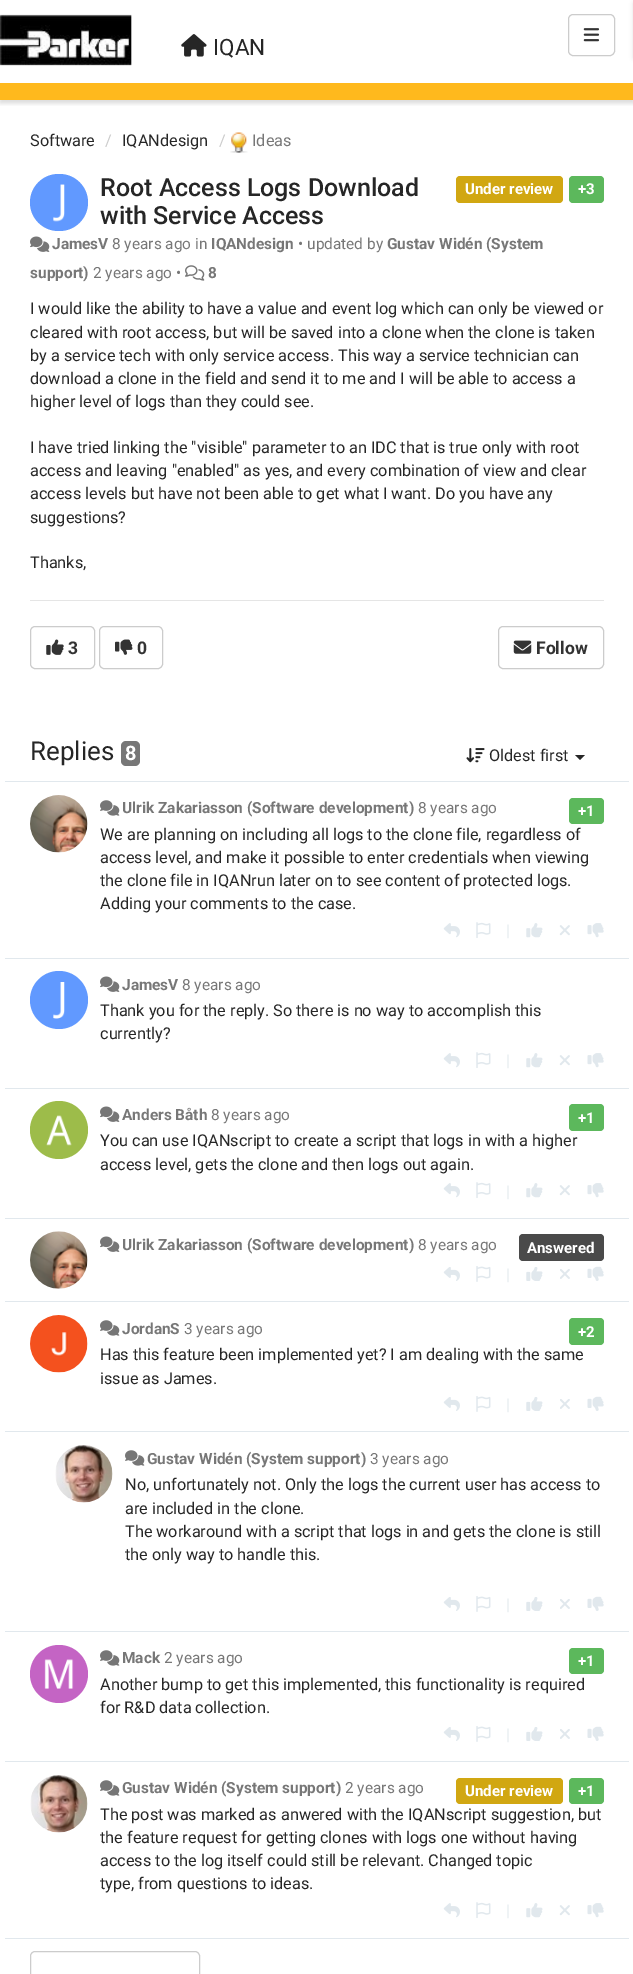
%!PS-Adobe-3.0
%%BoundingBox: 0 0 633 1974
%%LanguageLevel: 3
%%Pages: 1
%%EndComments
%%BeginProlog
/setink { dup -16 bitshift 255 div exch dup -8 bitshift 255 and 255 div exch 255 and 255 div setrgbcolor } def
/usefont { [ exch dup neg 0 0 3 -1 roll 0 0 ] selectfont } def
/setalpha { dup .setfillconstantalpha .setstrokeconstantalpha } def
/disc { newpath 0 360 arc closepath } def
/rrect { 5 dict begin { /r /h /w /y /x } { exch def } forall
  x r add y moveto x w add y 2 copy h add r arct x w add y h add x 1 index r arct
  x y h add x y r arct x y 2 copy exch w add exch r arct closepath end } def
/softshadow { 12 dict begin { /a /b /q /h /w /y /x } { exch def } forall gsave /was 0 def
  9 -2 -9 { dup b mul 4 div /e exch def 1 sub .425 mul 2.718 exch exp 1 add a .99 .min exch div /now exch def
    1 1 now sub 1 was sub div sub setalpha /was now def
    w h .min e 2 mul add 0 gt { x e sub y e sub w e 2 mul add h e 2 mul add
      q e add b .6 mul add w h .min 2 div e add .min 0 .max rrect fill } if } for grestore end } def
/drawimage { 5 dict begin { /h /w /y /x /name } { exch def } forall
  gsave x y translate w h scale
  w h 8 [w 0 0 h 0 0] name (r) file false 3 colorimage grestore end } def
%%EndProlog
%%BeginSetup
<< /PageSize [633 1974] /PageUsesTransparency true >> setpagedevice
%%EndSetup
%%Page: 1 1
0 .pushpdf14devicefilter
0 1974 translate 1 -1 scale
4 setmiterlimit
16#FFFFFF setink
0 0 633 1974 rectfill
gsave
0 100 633 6 rectclip
16#000000 setink
0 3 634 100 0 2.5 0.15 softshadow
grestore
16#FFB91D setink
0 83 633 17 rectfill
(img1.raw) 0 14 132 52 drawimage
(img2.raw) 181 34 26 23 drawimage
/Roboto-Regular 22.5 usefont
16#262626 setink
213 55 moveto (IQAN) show
16#CCCCCC setink
568.5 14.5 46 41 4.5 rrect stroke
(img3.raw) 583 28 17 14 drawimage
16#000000 setink
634 3 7 55 0 2.5 0.15 softshadow
/Roboto-Regular 16.25 usefont
16#262626 setink
30 146 moveto (Software) show
16#CCCCCC setink
105 146 moveto (/) show
16#262626 setink
122 146 moveto (IQANdesign) show
16#CCCCCC setink
219 146 moveto (/) show
(img4.raw) 230 132 18 21 drawimage
16#777777 setink
252 146 moveto (Ideas) show
16#6199FF setink
30 174 58 57 28.5 rrect fill
(img5.raw) 53 184 12 38 drawimage
/Roboto-Medium 25 usefont
16#262626 setink
100 196 moveto (Root Access Logs Download) show
100 224 moveto (with Service Access) show
16#D1A712 setink
456 176 107 27 4 rrect fill
/Roboto-Bold 15 usefont
16#FFFFFF setink
465 194 moveto (Under review) show
16#5CB85C setink
569 176 35 27 4 rrect fill
16#FFFFFF setink
578 194 moveto (+3) show
(img6.raw) 30 236 20 16 drawimage
/Roboto-Bold 15.4 usefont
16#777777 setink
52 249 moveto (JamesV) show
/Roboto-Regular 15.4 usefont
112 249 moveto (8 years ago in) show
/Roboto-Bold 15.4 usefont
211 249 moveto (IQANdesign) show
/Roboto-Regular 15.4 usefont
298 249 moveto (• updated by) show
/Roboto-Bold 15.4 usefont
387 249 moveto (Gustav Widén \(System) show
30 278 moveto (support\)) show
/Roboto-Regular 15.4 usefont
93 278 moveto (2 years ago •) show
(img7.raw) 185 265 20 16 drawimage
/Roboto-Bold 15.4 usefont
208 278 moveto (8) show
/Roboto-Regular 16.25 usefont
16#262626 setink
[
    [(I would like the ability to have a value and event log which can only be viewed or) 30 314]
    [(cleared with root access, but will be saved into a clone when the clone is taken) 30 338]
    [(by a service tech with only service access. This way a service technician can) 30 361]
    [(download a clone in the field and send it to me and I will be able to access a) 30 384]
    [(higher level of logs than they could see.) 30 407]
    [(I have tried linking the "visible" parameter to an IDC that is true only with root) 30 453]
    [(access and leaving "enabled" as yes, and every combination of view and clear) 30 476]
    [(access levels but have not been able to get what I want. Do you have any) 30 499]
    [(suggestions?) 30 523]
    [(Thanks,) 30 568]
] { aload pop moveto show } forall
16#E5E5E5 setink
30 600 574 1 rectfill
16#CCCCCC setink
30.5 626.5 64 42 4.5 rrect stroke
(img8.raw) 46 639 18 16 drawimage
/Roboto-Bold 17.5 usefont
16#333333 setink
68 654 moveto (3) show
16#CCCCCC setink
99.5 626.5 63 42 4.5 rrect stroke
(img9.raw) 115 639 18 16 drawimage
16#333333 setink
137 654 moveto (0) show
16#CCCCCC setink
498.5 626.5 105 42 4.5 rrect stroke
(img10.raw) 513 640 19 14 drawimage
16#333333 setink
536 654 moveto (Follow) show
/Roboto-Regular 26 usefont
16#262626 setink
30 760 moveto (Replies) show
16#777777 setink
121 741 19 25 5 rrect fill
/Roboto-Bold 20 usefont
16#FFFFFF setink
125 760 moveto (8) show
(img11.raw) 466 748 19 15 drawimage
/Roboto-Regular 16.25 usefont
16#262626 setink
489 761 moveto (Oldest first) show
575 755 moveto 585 755 lineto 580 760 lineto closepath fill
16#E1E8ED setink
5 781 624 1 rectfill
5 958 624 1 rectfill
(img12.raw) 30 795 58 58 drawimage
(img13.raw) 100 800 20 16 drawimage
/Roboto-Bold 15.4 usefont
16#777777 setink
122 813 moveto (Ulrik Zakariasson \(Software development\)) show
/Roboto-Regular 15.4 usefont
418 813 moveto (8 years ago) show
16#5CB85C setink
569 798 35 26 4 rrect fill
/Roboto-Bold 15 usefont
16#FFFFFF setink
578 816 moveto (+1) show
/Roboto-Regular 16.25 usefont
16#262626 setink
[
    [(We are planning on including all logs to the clone file, regardless of) 100 840]
    [(access level, and make it possible to enter credentials when viewing) 100 863]
    [(the clone file in IQANrun later on to see content of protected logs.) 100 886]
    [(Adding your comments to the case.) 100 909]
] { aload pop moveto show } forall
(img14.raw) 443 923 17 15 drawimage
(img15.raw) 476 922 15 16 drawimage
16#E1E8ED setink
506 936 moveto (|) show
(img16.raw) 526 923 17 15 drawimage
(img17.raw) 559 925 11 11 drawimage
(img18.raw) 587 923 17 15 drawimage
5 1088 624 1 rectfill
16#6199FF setink
59 1000 29 disc fill
(img19.raw) 53 982 12 37 drawimage
(img6.raw) 100 976 20 16 drawimage
/Roboto-Bold 15.4 usefont
16#777777 setink
122 990 moveto (JamesV) show
/Roboto-Regular 15.4 usefont
182 990 moveto (8 years ago) show
/Roboto-Regular 16.25 usefont
16#262626 setink
100 1016 moveto (Thank you for the reply. So there is no way to accomplish this) show
100 1039 moveto (currently?) show
(img14.raw) 443 1053 17 15 drawimage
(img15.raw) 476 1052 15 16 drawimage
16#E1E8ED setink
506 1066 moveto (|) show
(img16.raw) 526 1053 17 15 drawimage
(img17.raw) 559 1055 11 11 drawimage
(img18.raw) 587 1053 17 15 drawimage
5 1218 624 1 rectfill
16#9DBC4A setink
59 1130 29 disc fill
(img20.raw) 46 1115 26 31 drawimage
(img6.raw) 100 1106 20 16 drawimage
/Roboto-Bold 15.4 usefont
16#777777 setink
122 1120 moveto (Anders Båth) show
/Roboto-Regular 15.4 usefont
211 1120 moveto (8 years ago) show
16#5CB85C setink
569 1104 35 27 4 rrect fill
/Roboto-Bold 15 usefont
16#FFFFFF setink
578 1123 moveto (+1) show
/Roboto-Regular 16.25 usefont
16#262626 setink
100 1146 moveto (You can use IQANscript to create a script that logs in with a higher) show
100 1170 moveto (access level, gets the clone and then logs out again.) show
(img14.raw) 443 1183 17 15 drawimage
(img15.raw) 476 1182 15 16 drawimage
16#E1E8ED setink
506 1197 moveto (|) show
(img16.raw) 526 1183 17 15 drawimage
(img17.raw) 559 1185 11 11 drawimage
(img18.raw) 587 1183 17 15 drawimage
5 1301 624 1 rectfill
(img21.raw) 30 1231 58 58 drawimage
(img6.raw) 100 1236 20 16 drawimage
/Roboto-Bold 15.4 usefont
16#777777 setink
122 1250 moveto (Ulrik Zakariasson \(Software development\)) show
/Roboto-Regular 15.4 usefont
418 1250 moveto (8 years ago) show
16#4A4A4A setink
519 1234 85 27 4 rrect fill
/Roboto-Bold 15 usefont
16#FFFFFF setink
527 1253 moveto (Answered) show
(img22.raw) 443 1267 17 14 drawimage
(img23.raw) 476 1266 15 16 drawimage
/Roboto-Regular 16.25 usefont
16#E1E8ED setink
506 1280 moveto (|) show
(img24.raw) 526 1267 17 14 drawimage
(img25.raw) 560 1269 10 10 drawimage
(img26.raw) 587 1266 17 15 drawimage
5 1431 624 1 rectfill
(img27.raw) 30 1315 58 58 drawimage
(img13.raw) 100 1320 20 16 drawimage
/Roboto-Bold 15.4 usefont
16#777777 setink
122 1334 moveto (JordanS) show
/Roboto-Regular 15.4 usefont
184 1334 moveto (3 years ago) show
16#5CB85C setink
569 1318 35 27 4 rrect fill
/Roboto-Bold 15 usefont
16#FFFFFF setink
578 1337 moveto (+2) show
/Roboto-Regular 16.25 usefont
16#262626 setink
100 1360 moveto (Has this feature been implemented yet? I am dealing with the same) show
100 1384 moveto (issue as James.) show
(img22.raw) 443 1397 17 14 drawimage
(img23.raw) 476 1396 15 16 drawimage
16#E1E8ED setink
506 1410 moveto (|) show
(img24.raw) 526 1397 17 14 drawimage
(img25.raw) 560 1399 10 10 drawimage
(img26.raw) 587 1396 17 15 drawimage
5 1631 624 1 rectfill
(img28.raw) 55 1445 58 58 drawimage
(img13.raw) 125 1450 20 16 drawimage
/Roboto-Bold 15.4 usefont
16#777777 setink
147 1464 moveto (Gustav Widén \(System support\)) show
/Roboto-Regular 15.4 usefont
370 1464 moveto (3 years ago) show
/Roboto-Regular 16.25 usefont
16#262626 setink
[
    [(No, unfortunately not. Only the logs the current user has access to) 125 1490]
    [(are included in the clone.) 125 1514]
    [(The workaround with a script that logs in and gets the clone is still) 125 1537]
    [(the only way to handle this.) 125 1560]
] { aload pop moveto show } forall
(img22.raw) 443 1597 17 14 drawimage
(img23.raw) 476 1596 15 16 drawimage
16#E1E8ED setink
506 1610 moveto (|) show
(img24.raw) 526 1597 17 14 drawimage
(img25.raw) 560 1599 10 10 drawimage
(img26.raw) 587 1596 17 15 drawimage
5 1761 624 1 rectfill
16#C464C4 setink
59 1674 29 disc fill
(img29.raw) 44 1659 30 30 drawimage
(img13.raw) 100 1650 20 16 drawimage
/Roboto-Bold 15.4 usefont
16#777777 setink
122 1663 moveto (Mack) show
/Roboto-Regular 15.4 usefont
164 1663 moveto (2 years ago) show
16#5CB85C setink
569 1648 35 26 4 rrect fill
/Roboto-Bold 15 usefont
16#FFFFFF setink
578 1666 moveto (+1) show
/Roboto-Regular 16.25 usefont
16#262626 setink
100 1690 moveto (Another bump to get this implemented, this functionality is required) show
100 1713 moveto (for R&D data collection.) show
(img22.raw) 443 1727 17 14 drawimage
(img23.raw) 476 1726 15 16 drawimage
16#E1E8ED setink
506 1740 moveto (|) show
(img24.raw) 526 1727 17 14 drawimage
(img25.raw) 560 1729 10 10 drawimage
(img26.raw) 587 1726 17 15 drawimage
5 1938 624 1 rectfill
(img30.raw) 30 1775 58 58 drawimage
(img13.raw) 100 1780 20 16 drawimage
/Roboto-Bold 15.4 usefont
16#777777 setink
122 1793 moveto (Gustav Widén \(System support\)) show
/Roboto-Regular 15.4 usefont
345 1793 moveto (2 years ago) show
16#D1A712 setink
456 1778 107 26 4 rrect fill
/Roboto-Bold 15 usefont
16#FFFFFF setink
465 1796 moveto (Under review) show
16#5CB85C setink
569 1778 35 26 4 rrect fill
16#FFFFFF setink
578 1796 moveto (+1) show
/Roboto-Regular 16.25 usefont
16#262626 setink
[
    [(The post was marked as anwered with the IQANscript suggestion, but) 100 1820]
    [(the feature request for getting clones with logs one without having) 100 1843]
    [(access to the log itself could still be relevant. Changed topic) 100 1866]
    [(type, from questions to ideas.) 100 1889]
] { aload pop moveto show } forall
(img14.raw) 443 1903 17 15 drawimage
(img15.raw) 476 1902 15 16 drawimage
16#E1E8ED setink
506 1916 moveto (|) show
(img16.raw) 526 1903 17 15 drawimage
(img17.raw) 559 1905 11 11 drawimage
(img18.raw) 587 1903 17 15 drawimage
16#CCCCCC setink
30.5 1951.5 169 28 4.5 rrect stroke
.poppdf14devicefilter showpage
%%EOF
